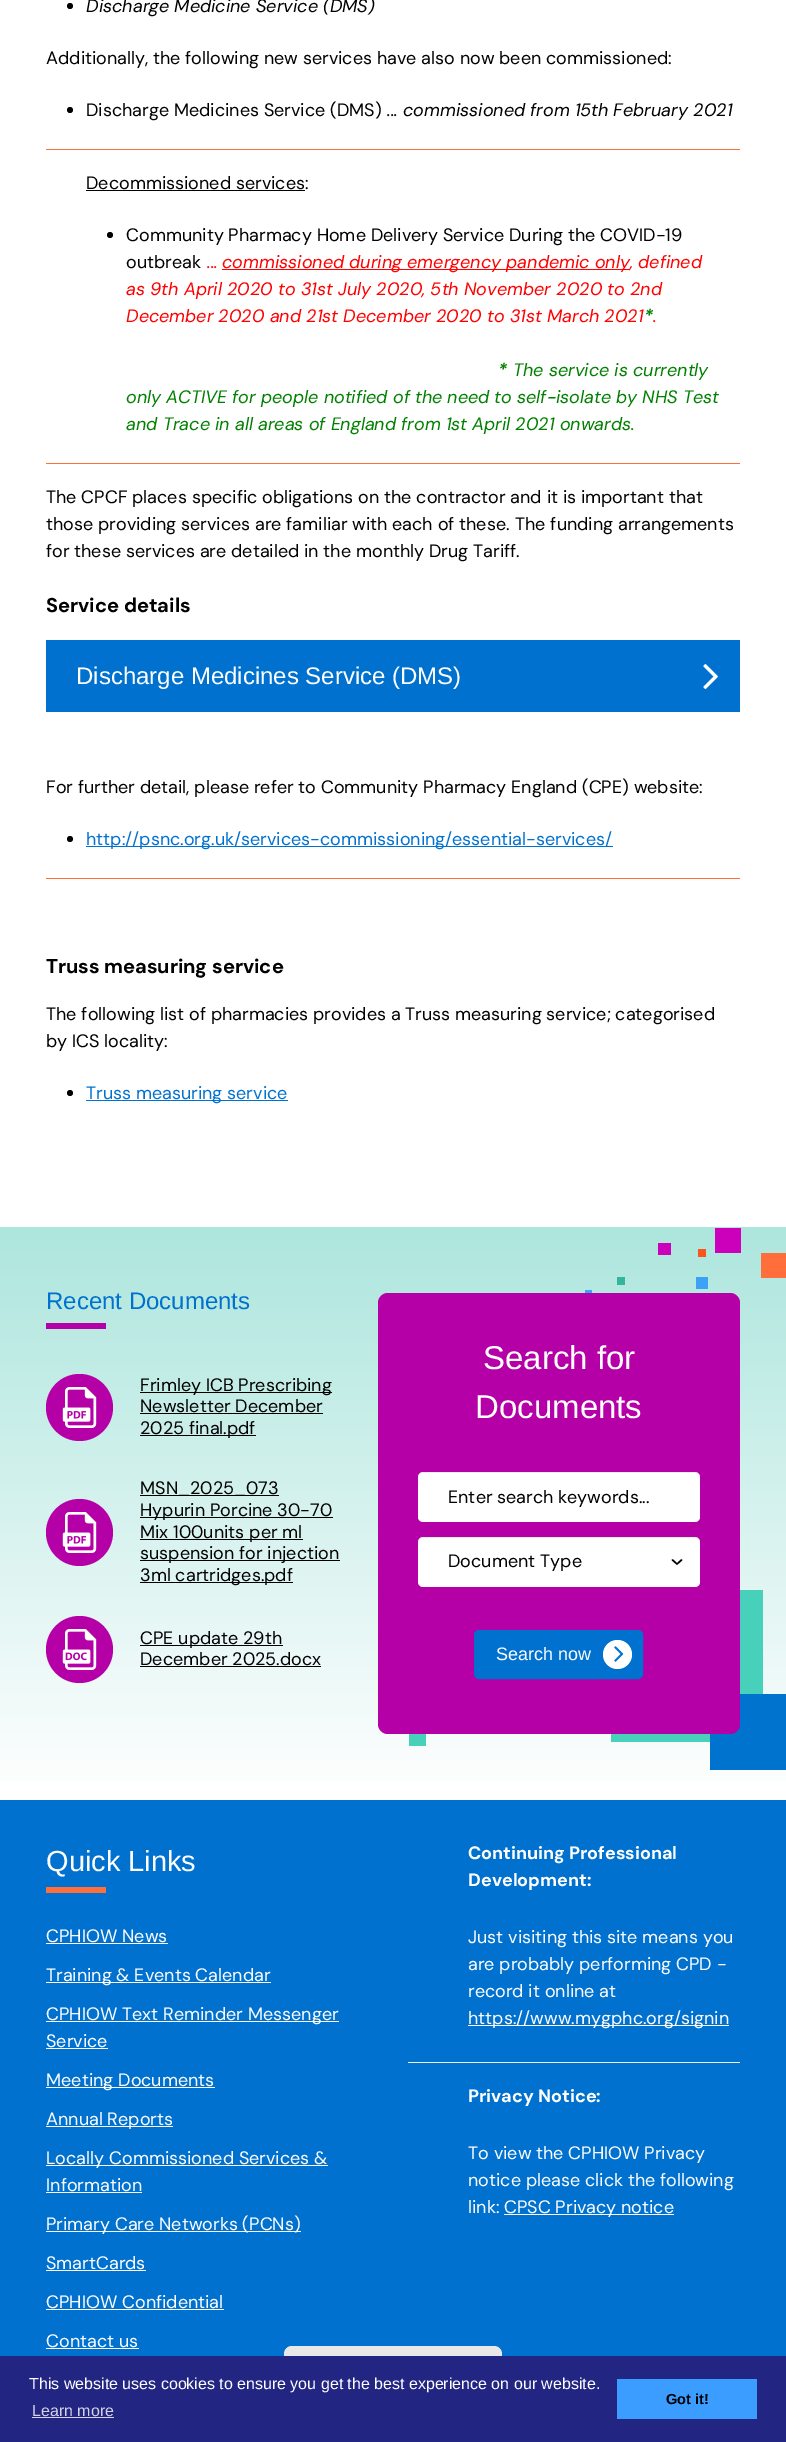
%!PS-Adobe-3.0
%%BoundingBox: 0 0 786 2442
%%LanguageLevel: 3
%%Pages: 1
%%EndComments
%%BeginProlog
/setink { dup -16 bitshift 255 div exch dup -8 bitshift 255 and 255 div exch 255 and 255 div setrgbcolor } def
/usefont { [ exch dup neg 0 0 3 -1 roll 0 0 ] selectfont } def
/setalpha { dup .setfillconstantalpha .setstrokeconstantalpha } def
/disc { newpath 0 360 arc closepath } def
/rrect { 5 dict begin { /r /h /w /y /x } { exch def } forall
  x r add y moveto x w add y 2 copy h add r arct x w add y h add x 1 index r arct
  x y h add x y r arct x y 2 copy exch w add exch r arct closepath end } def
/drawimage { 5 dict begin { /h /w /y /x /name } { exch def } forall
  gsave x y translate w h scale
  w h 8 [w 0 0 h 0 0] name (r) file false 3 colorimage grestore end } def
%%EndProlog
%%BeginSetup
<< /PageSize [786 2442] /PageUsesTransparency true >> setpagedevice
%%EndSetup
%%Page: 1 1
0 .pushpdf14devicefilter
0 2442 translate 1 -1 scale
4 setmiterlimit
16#FFFFFF setink
0 0 786 2442 rectfill
16#000000 setink
70 6 3 disc fill
/DMSans-Italic 18 usefont
86 12 moveto (Discharge Medicine Service \(DMS\)) show
/DMSans-Regular 18 usefont
46 64 moveto (Additionally, the following new services have also now been commissioned:) show
70 110 3 disc fill
86 116 moveto (Discharge Medicines Service \(DMS\)) show
/DMSans-Italic 18 usefont
387 116 moveto (... commissioned from 15th February 2021) show
16#FF6E3B setink
46 149 694 1 rectfill
/DMSans-Regular 18 usefont
16#000000 setink
86 189 moveto (Decommissioned services:) show
86 190 219 1 rectfill
110 235 3 disc fill
126 241 moveto (Community Pharmacy Home Delivery Service During the COVID-19) show
126 268 moveto (outbreak) show
/DMSans-Italic 18 usefont
16#FF0000 setink
207 268 moveto (...) show
222 269 408 1 rectfill
[
    [(commissioned during emergency pandemic only, defined) 222 268]
    [(as 9th April 2020 to 31st July 2020, 5th November 2020 to 2nd) 126 295]
    [(December 2020 and 21st December 2020 to 31st March 2021) 126 322]
] { aload pop moveto show } forall
/DMSans-BoldItalic 18 usefont
16#008000 setink
644 322 moveto (*) show
/DMSans-Italic 18 usefont
16#FF0000 setink
653 322 moveto (.) show
/DMSans-BoldItalic 18 usefont
16#008000 setink
498 376 moveto (*) show
/DMSans-Italic 18 usefont
[
    [(The service is currently) 513 376]
    [(only ACTIVE for people notified of the need to self-isolate by NHS Test) 126 403]
    [(and Trace in all areas of England from 1st April 2021 onwards.) 126 430]
] { aload pop moveto show } forall
16#FF6E3B setink
46 463 694 1 rectfill
/DMSans-Regular 18 usefont
16#000000 setink
[
    [(The CPCF places specific obligations on the contractor and it is important that) 46 503]
    [(those providing services are familiar with each of these.) 46 530]
    [(The funding arrangements) 515 530]
    [(for these services are detailed in the monthly Drug Tariff.) 46 557]
] { aload pop moveto show } forall
/DMSans-Bold 20 usefont
46 612 moveto (Service details) show
16#0071CF setink
46 640 694 72 rectfill
/LiberationSans-Regular 24 usefont
16#FFFFFF setink
76 684 moveto (Discharge Medicines Service \(DMS\)) show
(img1.raw) 703 664 15 25 drawimage
/DMSans-Regular 18 usefont
16#000000 setink
46 793 moveto (For further detail, please refer to Community Pharmacy England \(CPE\) website:) show
70 839 3 disc fill
16#0071CF setink
86 846 527 1 rectfill
86 845 moveto (http://psnc.org.uk/services-commissioning/essential-services/) show
16#FF6E3B setink
46 878 694 1 rectfill
/DMSans-Bold 20 usefont
16#000000 setink
46 973 moveto (Truss measuring service) show
/DMSans-Regular 18 usefont
46 1020 moveto (The following list of pharmacies provides a Truss measuring service; categorised) show
46 1047 moveto (by ICS locality:) show
70 1093 3 disc fill
16#0071CF setink
86 1100 202 1 rectfill
86 1099 moveto (Truss measuring service) show
gsave 0 1227 moveto 786 1227 lineto 786 1783 lineto 0 1783 lineto closepath clip newpath
<< /ShadingType 2 /ColorSpace /DeviceRGB /Coords [393 1227 393 1800] /Extend [true true] /Function << /FunctionType 2 /Domain [0 1] /C0 [0.678 0.902 0.867] /C1 [1 1 1] /N 1 >> >> shfill grestore
[
    [761 1253 25 25 16#FF6E3B]
    [715 1228 26 25 16#CC00BA]
    [696 1277 12 12 16#3CA2F8]
    [658 1243 13 12 16#CC00BA]
    [617 1277 8 8 16#32B79D]
    [698 1249 8 8 16#F8571C]
    [585 1290 7 3 16#3CA2F8]
] { aload pop setink rectfill } forall
/LiberationSans-Regular 24 usefont
16#0071CF setink
46 1309 moveto (Recent Documents) show
16#B400A6 setink
46 1323 60 6 rectfill
79.5 1407.5 33.5 disc fill
16#000000 setink
140 1392 192 1 rectfill
/DMSans-Regular 18 usefont
140 1391 moveto (Frimley ICB Prescribing) show
(img2.raw) 62 1387 35 41 drawimage
140 1412 moveto (Newsletter December) show
140 1413 183 1 rectfill
140 1435 116 1 rectfill
140 1434 moveto (2025 final.pdf) show
140 1495 139 1 rectfill
140 1494 moveto (MSN_2025_073) show
16#B400A6 setink
79.5 1532.5 33.5 disc fill
16#000000 setink
140 1517 193 1 rectfill
140 1516 moveto (Hypurin Porcine 30-70) show
(img2.raw) 62 1512 35 41 drawimage
140 1539 163 1 rectfill
140 1538 moveto (Mix 100units per ml) show
140 1560 200 1 rectfill
140 1559 moveto (suspension for injection) show
140 1582 153 1 rectfill
140 1581 moveto (3ml cartridges.pdf) show
16#B400A6 setink
79.5 1649.5 33.5 disc fill
(img3.raw) 62 1629 35 41 drawimage
16#000000 setink
140 1645 143 1 rectfill
140 1644 moveto (CPE update 29th) show
140 1665 moveto (December 2025.docx) show
[
    [140 1666 181 1 16#000000]
    [611 1590 152 152 16#47D1BA]
    [710 1694 76 76 16#0073CF]
] { aload pop setink rectfill } forall
16#B400A6 setink
378 1293 362 441 10 rrect fill
/LiberationSans-Regular 33 usefont
16#FFFFFF setink
483 1369 moveto (Search for) show
475 1418 moveto (Documents) show
418 1472 282 50 5 rrect fill
0.07 setalpha
16#000000 setink
423 1473 moveto 695 1473 lineto 698 1473 700 1475 700 1478 curveto 700 1477 lineto 700 1474 698 1472 695 1472 curveto 423 1472 lineto 420 1472 418 1474 418 1477 curveto 418 1478 lineto 418 1475 420 1473 423 1473 curveto closepath fill
/DMSans-Regular 18 usefont
1 setalpha
448 1503 moveto (Enter search keywords...) show
16#FFFFFF setink
418 1537 282 50 5 rrect fill
16#000000 setink
1.5 setlinewidth
1 setlinecap
1 setlinejoin
672.5 1560 moveto 677 1564 lineto 681.5 1560 lineto stroke
0.07 setalpha
423 1538 moveto 695 1538 lineto 698 1538 700 1540 700 1543 curveto 700 1542 lineto 700 1539 698 1537 695 1537 curveto 423 1537 lineto 420 1537 418 1539 418 1542 curveto 418 1543 lineto 418 1540 420 1538 423 1538 curveto closepath fill
1 setalpha
448 1567 moveto (Document Type) show
16#0071CF setink
475 1631 167 47 4 rrect gsave fill grestore
2 setlinewidth
0 setlinecap
0 setlinejoin
stroke
/LiberationSans-Regular 18 usefont
16#FFFFFF setink
496 1660 moveto (Search now) show
617.5 1654.5 14.5 disc fill
(img4.raw) 614 1646 10 16 drawimage
16#47D1BA setink
409 1734 17 12 rectfill
16#0071CF setink
0 1800 786 556 rectfill
/LiberationSans-Regular 29 usefont
16#FFFFFF setink
46 1871 moveto (Quick Links) show
16#FF6E3B setink
46 1887 60 6 rectfill
/DMSans-Regular 18 usefont
16#FFFFFF setink
46 1942 moveto (CPHIOW News) show
46 1943 122 1 rectfill
46 1982 225 1 rectfill
46 1981 moveto (Training & Events Calendar) show
46 2021 293 1 rectfill
46 2020 moveto (CPHIOW Text Reminder Messenger) show
46 2047 moveto (Service) show
46 2048 62 1 rectfill
46 2087 169 1 rectfill
46 2086 moveto (Meeting Documents) show
46 2126 127 1 rectfill
46 2125 moveto (Annual Reports) show
46 2165 282 1 rectfill
46 2164 moveto (Locally Commissioned Services &) show
46 2191 moveto (Information) show
46 2192 96 1 rectfill
46 2231 255 1 rectfill
46 2230 moveto (Primary Care Networks \(PCNs\)) show
46 2269 moveto (SmartCards) show
46 2270 100 1 rectfill
46 2308 moveto (CPHIOW Confidential) show
46 2309 178 1 rectfill
46 2347 moveto (Contact us) show
46 2348 93 1 rectfill
/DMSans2-Bold 18 usefont
468 1859 moveto (Continuing Professional) show
468 1886 moveto (Development:) show
/DMSans-Regular 18 usefont
[
    [(Just visiting this site means you) 468 1943]
    [(are probably performing CPD -) 468 1970]
    [(record it online at) 468 1997]
] { aload pop moveto show } forall
468 2025 261 1 rectfill
468 2024 moveto (https://www.mygphc.org/signin) show
16#EEEEEE setink
408 2062 332 1 rectfill
/DMSans2-Bold 18 usefont
16#FFFFFF setink
468 2102 moveto (Privacy Notice:) show
/DMSans-Regular 18 usefont
[
    [(To view the CPHIOW Privacy) 468 2159]
    [(notice please click the following) 468 2186]
    [(link:) 468 2213]
] { aload pop moveto show } forall
504 2214 170 1 rectfill
504 2213 moveto (CPSC Privacy notice) show
16#E8E8E8 setink
284 2346 218 40 8 rrect fill
16#222582 setink
0 2356 786 86 rectfill
/LiberationSans-Regular 16 usefont
16#FFFFFF setink
29 2389 moveto (This website uses cookies to ensure you get the best experience on our website.) show
16#D3D3E6 setink
32 2416 moveto (Learn more) show
32 2417 82 1 rectfill
16#3B9DFF setink
617 2379 140 40 rectfill
/LiberationSans-Bold 14.5 usefont
16#000000 setink
666 2404 moveto (Got it!) show
.poppdf14devicefilter showpage
%%EOF
